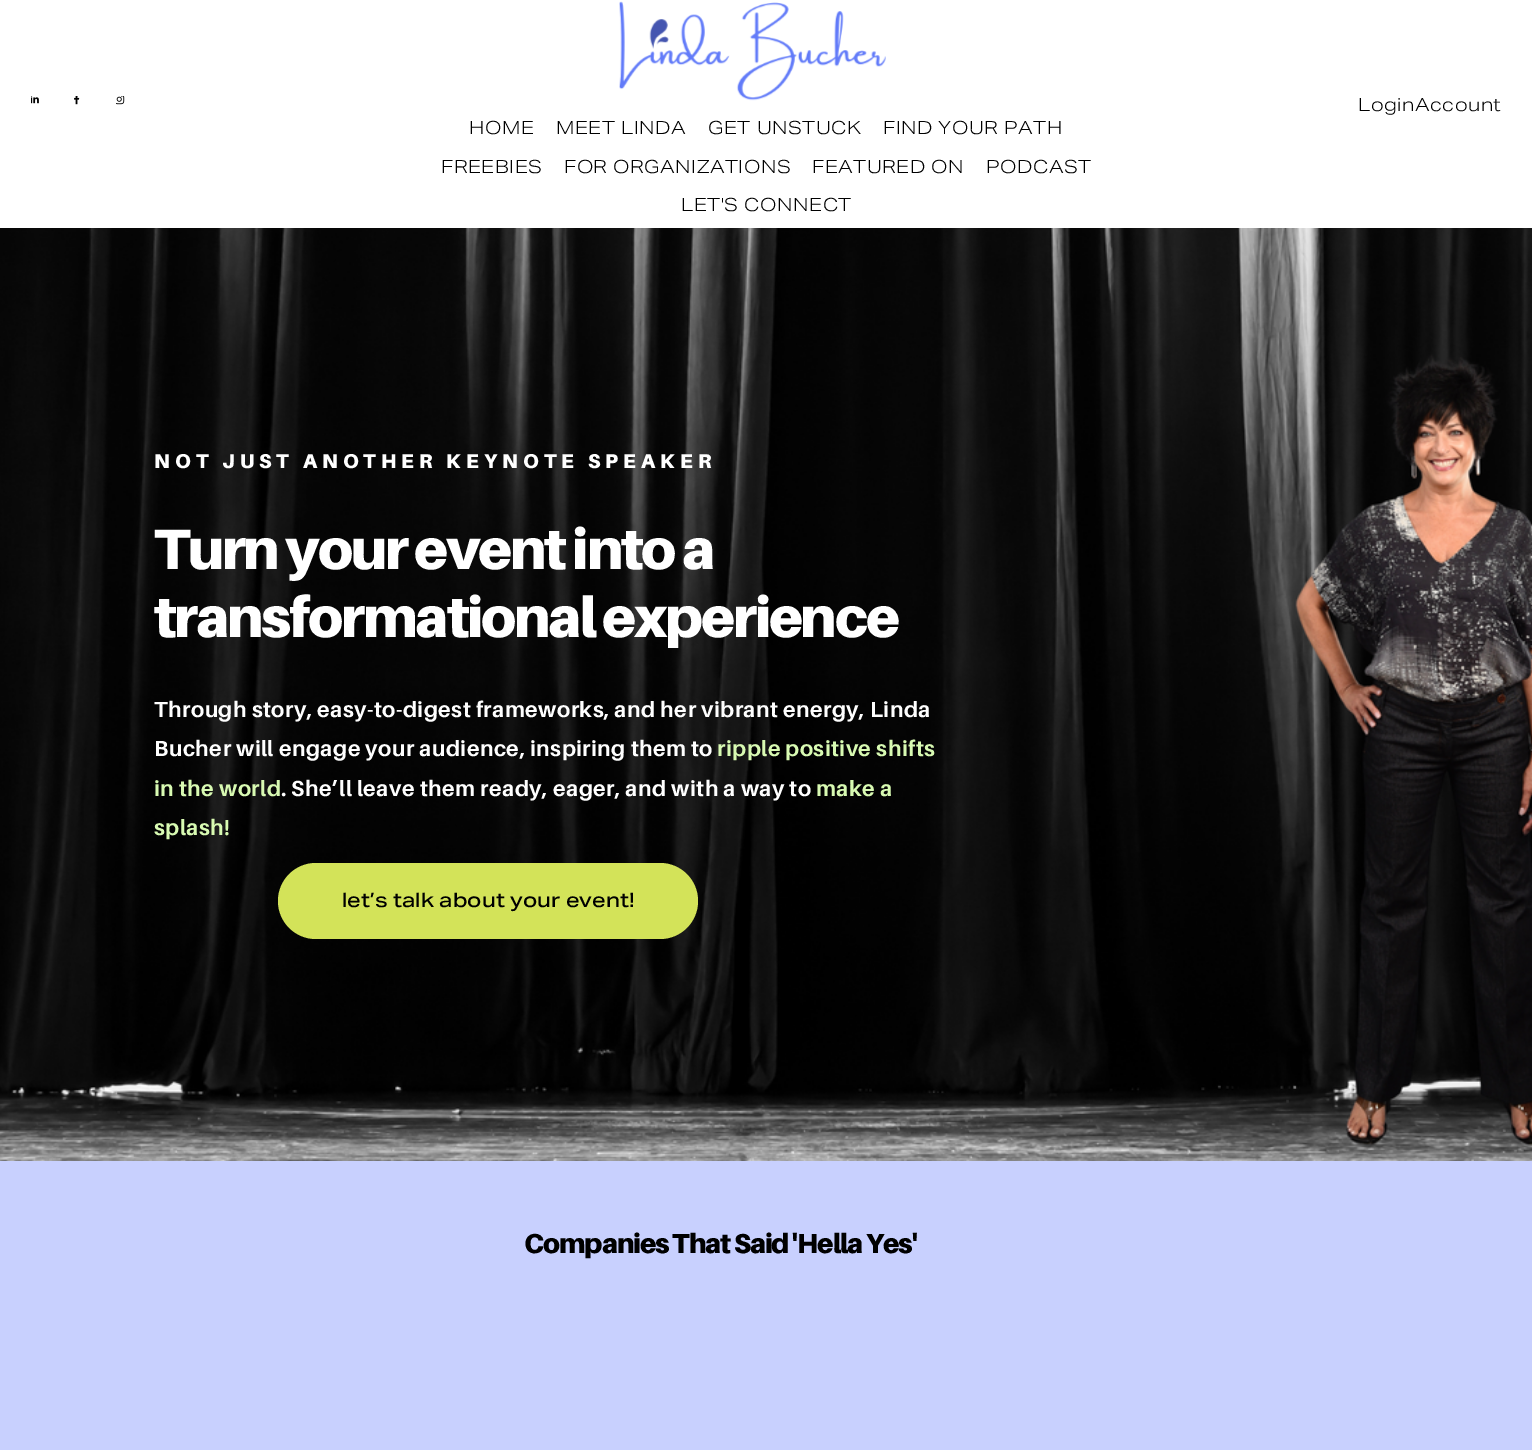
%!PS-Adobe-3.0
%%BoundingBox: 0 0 1532 1450
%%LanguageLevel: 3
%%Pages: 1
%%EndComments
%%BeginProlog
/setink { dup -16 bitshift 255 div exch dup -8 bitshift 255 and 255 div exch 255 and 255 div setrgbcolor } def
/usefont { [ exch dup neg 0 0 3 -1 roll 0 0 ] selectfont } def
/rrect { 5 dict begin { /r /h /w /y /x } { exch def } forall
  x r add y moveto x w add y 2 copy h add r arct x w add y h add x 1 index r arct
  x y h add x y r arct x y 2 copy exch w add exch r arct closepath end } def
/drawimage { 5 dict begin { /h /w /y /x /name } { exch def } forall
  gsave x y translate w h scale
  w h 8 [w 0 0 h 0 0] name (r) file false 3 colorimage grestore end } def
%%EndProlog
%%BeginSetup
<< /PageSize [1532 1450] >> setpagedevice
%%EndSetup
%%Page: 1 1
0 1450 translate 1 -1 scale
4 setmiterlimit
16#FFFFFF setink
0 0 1532 1450 rectfill
(img1.raw) 31 96 8 8 drawimage
(img2.raw) 74 96 6 9 drawimage
(img3.raw) 116 96 9 9 drawimage
/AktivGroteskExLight-Light 18.2 usefont
16#000000 setink
1358 111 moveto 0.5 0 (LoginAccount) ashow
(img4.raw) 619 1 267 100 drawimage
469 134 moveto 0.5 0 (HOME) ashow
556 134 moveto 0.5 0 (MEET LINDA) ashow
708 134 moveto 0.5 0 (GET UNSTUCK) ashow
883 134 moveto 0.5 0 (FIND YOUR PATH) ashow
441 173 moveto 0.5 0 (FREEBIES) ashow
564 173 moveto 0.5 0 (FOR ORGANIZATIONS) ashow
812 173 moveto 0.5 0 (FEATURED ON) ashow
986 173 moveto 0.5 0 (PODCAST) ashow
681 211 moveto 0.5 0 (LET'S CONNECT) ashow
(img5.raw) 0 228 1532 933 drawimage
/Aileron-Black 20 usefont
16#FFFFFF setink
154 468 moveto 5 0 (NOT JUST ANOTHER KEYNOTE SPEAKER) ashow
/Aileron-Black 56.75 usefont
154 569 moveto -2.25 0 (Turn your event into a) ashow
154 637 moveto -2.25 0 (transformational experience) ashow
/Aileron-Bold 21.85 usefont
154 717 moveto 0.45 0 (Through story, easy-to-digest frameworks, and her vibrant energy, Linda) ashow
154 756 moveto 0.45 0 (Bucher will engage your audience, inspiring them to) ashow
16#D8FAB2 setink
717 756 moveto 0.45 0 (ripple positive shifts) ashow
154 796 moveto 0.45 0 (in the world) ashow
16#FFFFFF setink
281 796 moveto 0.45 0 (. She’ll leave them ready, eager, and with a way to) ashow
16#D8FAB2 setink
816 796 moveto 0.45 0 (make a) ashow
154 835 moveto 0.45 0 (splash!) ashow
16#D3E359 setink
278 863 420 76 38 rrect fill
/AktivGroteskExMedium-Medium 20 usefont
16#000000 setink
342 907 moveto (let’s talk about your event!) show
16#C8D0FE setink
0 1161 1532 289 rectfill
/Aileron-Black 27.4 usefont
16#000000 setink
524 1253 moveto -1.1 0 (Companies That Said 'Hella Yes') ashow
showpage
%%EOF
